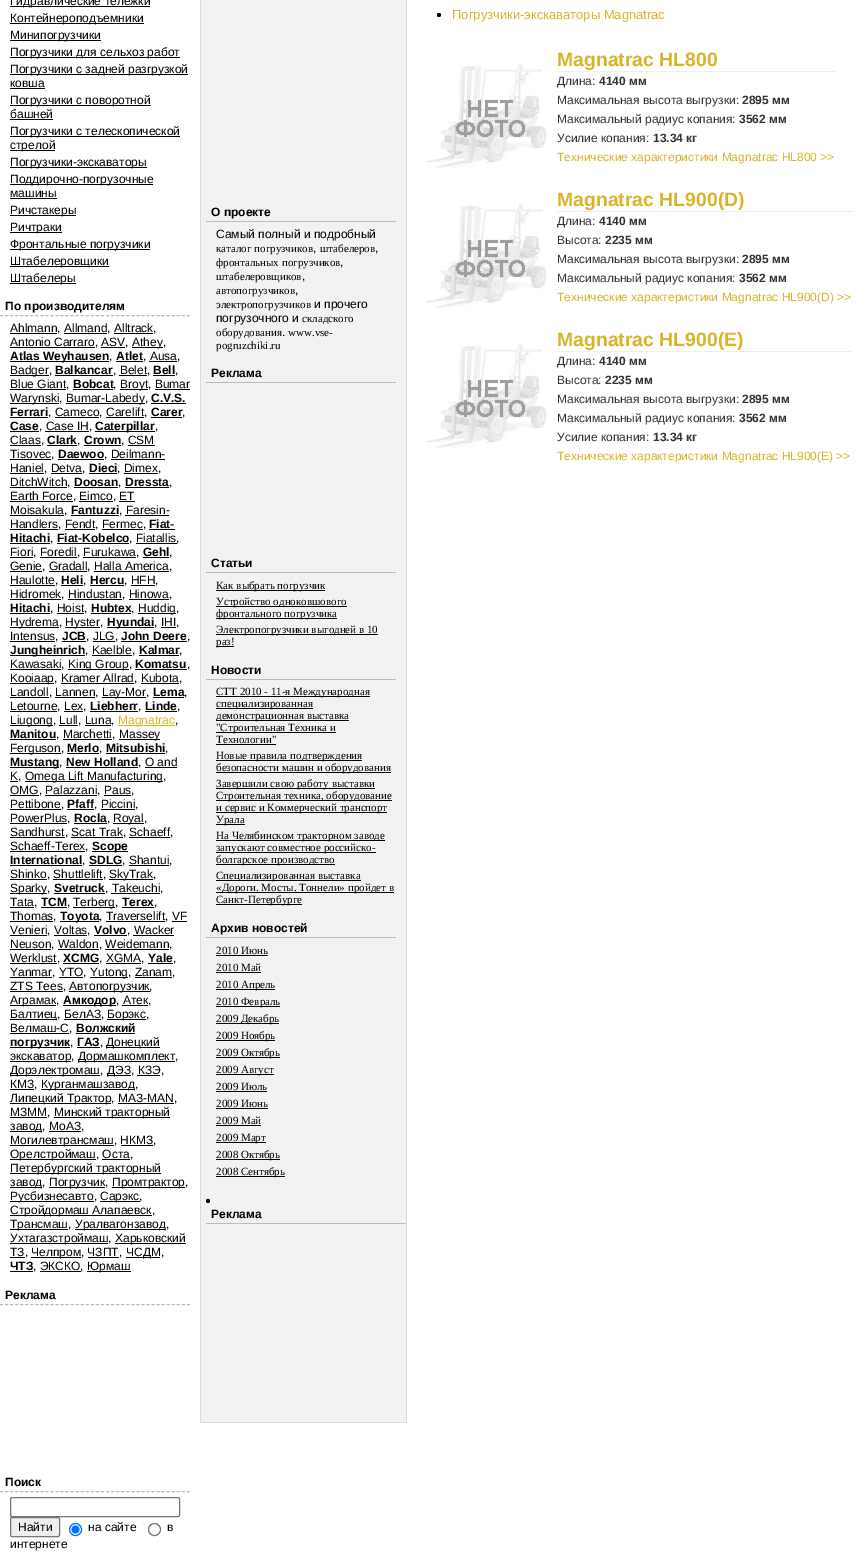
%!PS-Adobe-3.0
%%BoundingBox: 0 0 867 1566
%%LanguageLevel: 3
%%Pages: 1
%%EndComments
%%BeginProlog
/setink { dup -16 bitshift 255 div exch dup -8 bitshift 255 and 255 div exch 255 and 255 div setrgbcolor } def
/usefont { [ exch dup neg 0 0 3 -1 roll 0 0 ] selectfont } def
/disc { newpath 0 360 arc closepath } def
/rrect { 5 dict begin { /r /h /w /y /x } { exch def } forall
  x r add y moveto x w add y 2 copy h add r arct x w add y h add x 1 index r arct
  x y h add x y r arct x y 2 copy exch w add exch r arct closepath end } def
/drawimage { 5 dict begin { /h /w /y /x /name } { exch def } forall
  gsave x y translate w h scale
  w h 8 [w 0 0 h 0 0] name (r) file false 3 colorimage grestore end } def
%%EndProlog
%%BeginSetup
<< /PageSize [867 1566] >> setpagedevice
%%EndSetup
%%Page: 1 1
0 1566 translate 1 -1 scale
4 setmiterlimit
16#FFFFFF setink
0 0 867 1566 rectfill
16#000000 setink
10 6 140 1 rectfill
/LiberationSans-Regular 12 usefont
10 5 moveto (Гидравлические тележки) show
10 23 134 1 rectfill
10 22 moveto (Контейнероподъемники) show
10 40 91 1 rectfill
10 39 moveto (Минипогрузчики) show
10 57 170 1 rectfill
10 56 moveto (Погрузчики для сельхоз работ) show
10 74 178 1 rectfill
10 73 moveto (Погрузчики с задней разгрузкой) show
10 87 moveto (ковша) show
10 88 35 1 rectfill
10 105 141 1 rectfill
10 104 moveto (Погрузчики с поворотной) show
10 118 moveto (башней) show
10 119 43 1 rectfill
10 136 170 1 rectfill
10 135 moveto (Погрузчики с телескопической) show
10 150 45 1 rectfill
10 149 moveto (стрелой) show
10 167 137 1 rectfill
10 166 moveto (Погрузчики-экскаваторы) show
10 184 143 1 rectfill
10 183 moveto (Поддирочно-погрузочные) show
10 197 moveto (машины) show
10 198 47 1 rectfill
10 215 66 1 rectfill
10 214 moveto (Ричстакеры) show
10 232 52 1 rectfill
10 231 moveto (Ричтраки) show
10 249 140 1 rectfill
10 248 moveto (Фронтальные погрузчики) show
10 266 99 1 rectfill
10 265 moveto (Штабелеровщики) show
10 283 66 1 rectfill
10 282 moveto (Штабелеры) show
16#BBBBBB setink
[3 2.05] 0 setdash
0 315.5 moveto 190 315.5 lineto stroke
/LiberationSans-Bold 12 usefont
16#000000 setink
5 310 moveto (По производителям) show
10 333 47 1 rectfill
/LiberationSans-Regular 12 usefont
10 332 moveto (Ahlmann, Allmand, Alltrack,) show
[
    [64 333 43 1 16#000000]
    [114 333 39 1 16#000000]
    [10 347 85 1 16#000000]
] { aload pop setink rectfill } forall
10 346 moveto (Antonio Carraro, ASV,) show
132 347 31 1 rectfill
132 346 moveto (Athey,) show
101 347 24 1 rectfill
10 361 99 1 rectfill
/LiberationSans-Bold 12 usefont
10 360 moveto (Atlas Weyhausen) show
/LiberationSans-Regular 12 usefont
109 360 moveto (,) show
/LiberationSans-Bold 12 usefont
116 360 moveto (Atlet) show
116 361 27 1 rectfill
/LiberationSans-Regular 12 usefont
143 360 moveto (, Ausa,) show
149 361 28 1 rectfill
10 375 39 1 rectfill
10 374 moveto (Badger,) show
/LiberationSans-Bold 12 usefont
55 374 moveto (Balkancar) show
55 375 58 1 rectfill
/LiberationSans-Regular 12 usefont
113 374 moveto (, Belet,) show
/LiberationSans-Bold 12 usefont
153 374 moveto (Bell) show
153 375 22 1 rectfill
/LiberationSans-Regular 12 usefont
175 374 moveto (,) show
119 375 28 1 rectfill
10 389 56 1 rectfill
10 388 moveto (Blue Giant,) show
/LiberationSans-Bold 12 usefont
73 388 moveto (Bobcat) show
73 389 40 1 rectfill
/LiberationSans-Regular 12 usefont
113 388 moveto (,) show
120 389 28 1 rectfill
120 388 moveto (Broyt, Bumar) show
10 403 49 1 rectfill
10 402 moveto (Warynski,) show
155 389 35 1 rectfill
66 403 79 1 rectfill
66 402 moveto (Bumar-Labedy,) show
/LiberationSans-Bold 12 usefont
151 402 moveto (C.V.S.) show
151 403 35 1 rectfill
10 416 moveto (Ferrari) show
10 417 38 1 rectfill
/LiberationSans-Regular 12 usefont
48 416 moveto (, Cameco, Carelift,) show
/LiberationSans-Bold 12 usefont
151 416 moveto (Carer) show
151 417 31 1 rectfill
/LiberationSans-Regular 12 usefont
182 416 moveto (,) show
55 417 44 1 rectfill
106 417 38 1 rectfill
/LiberationSans-Bold 12 usefont
10 430 moveto (Case) show
10 431 29 1 rectfill
/LiberationSans-Regular 12 usefont
39 430 moveto (, Case IH,) show
95 431 60 1 rectfill
/LiberationSans-Bold 12 usefont
95 430 moveto (Caterpillar) show
/LiberationSans-Regular 12 usefont
155 430 moveto (,) show
45 431 44 1 rectfill
10 445 31 1 rectfill
10 444 moveto (Claas,) show
/LiberationSans-Bold 12 usefont
47 444 moveto (Clark) show
47 445 30 1 rectfill
/LiberationSans-Regular 12 usefont
77 444 moveto (,) show
/LiberationSans-Bold 12 usefont
84 444 moveto (Crown) show
84 445 37 1 rectfill
/LiberationSans-Regular 12 usefont
121 444 moveto (, CSM) show
10 459 41 1 rectfill
10 458 moveto (Tisovec,) show
128 445 27 1 rectfill
/LiberationSans-Bold 12 usefont
58 458 moveto (Daewoo) show
58 459 46 1 rectfill
/LiberationSans-Regular 12 usefont
104 458 moveto (, Deilmann-) show
10 473 34 1 rectfill
10 472 moveto (Haniel, Detva,) show
111 459 54 1 rectfill
/LiberationSans-Bold 12 usefont
89 472 moveto (Dieci) show
89 473 28 1 rectfill
/LiberationSans-Regular 12 usefont
117 472 moveto (, Dimex,) show
[
    [51 473 31 1 16#000000]
    [124 473 34 1 16#000000]
    [10 487 57 1 16#000000]
] { aload pop setink rectfill } forall
10 486 moveto (DitchWitch,) show
/LiberationSans-Bold 12 usefont
74 486 moveto (Doosan) show
74 487 44 1 rectfill
/LiberationSans-Regular 12 usefont
118 486 moveto (,) show
/LiberationSans-Bold 12 usefont
125 486 moveto (Dressta) show
125 487 44 1 rectfill
/LiberationSans-Regular 12 usefont
169 486 moveto (,) show
10 501 63 1 rectfill
10 500 moveto (Earth Force, Eimco, ET) show
79 501 34 1 rectfill
10 515 54 1 rectfill
10 514 moveto (Moisakula,) show
119 501 16 1 rectfill
/LiberationSans-Bold 12 usefont
71 514 moveto (Fantuzzi) show
71 515 48 1 rectfill
/LiberationSans-Regular 12 usefont
119 514 moveto (, Faresin-) show
10 529 48 1 rectfill
10 528 moveto (Handlers, Fendt, Fermec,) show
125 515 44 1 rectfill
/LiberationSans-Bold 12 usefont
149 528 moveto (Fiat-) show
[
    [149 529 26 1 16#000000]
    [65 529 30 1 16#000000]
    [102 529 41 1 16#000000]
] { aload pop setink rectfill } forall
10 542 moveto (Hitachi) show
10 543 40 1 rectfill
/LiberationSans-Regular 12 usefont
50 542 moveto (,) show
/LiberationSans-Bold 12 usefont
57 542 moveto (Fiat-Kobelco) show
57 543 72 1 rectfill
/LiberationSans-Regular 12 usefont
129 542 moveto (, Fiatallis,) show
136 543 41 1 rectfill
10 557 23 1 rectfill
10 556 moveto (Fiori, Foredil, Furukawa,) show
/LiberationSans-Bold 12 usefont
143 556 moveto (Gehl) show
143 557 26 1 rectfill
/LiberationSans-Regular 12 usefont
169 556 moveto (,) show
[
    [40 557 37 1 16#000000]
    [83 557 53 1 16#000000]
    [10 571 32 1 16#000000]
] { aload pop setink rectfill } forall
10 570 moveto (Genie, Gradall, Halla America,) show
[
    [49 571 38 1 16#000000]
    [94 571 75 1 16#000000]
    [10 585 45 1 16#000000]
] { aload pop setink rectfill } forall
10 584 moveto (Haulotte,) show
/LiberationSans-Bold 12 usefont
61 584 moveto (Heli) show
61 585 22 1 rectfill
/LiberationSans-Regular 12 usefont
83 584 moveto (,) show
/LiberationSans-Bold 12 usefont
90 584 moveto (Hercu) show
90 585 34 1 rectfill
/LiberationSans-Regular 12 usefont
124 584 moveto (, HFH,) show
131 585 24 1 rectfill
10 599 51 1 rectfill
10 598 moveto (Hidromek, Hindustan, Hinowa,) show
68 599 54 1 rectfill
129 599 40 1 rectfill
/LiberationSans-Bold 12 usefont
10 612 moveto (Hitachi) show
10 613 40 1 rectfill
/LiberationSans-Regular 12 usefont
50 612 moveto (, Hoist,) show
/LiberationSans-Bold 12 usefont
91 612 moveto (Hubtex) show
91 613 40 1 rectfill
/LiberationSans-Regular 12 usefont
131 612 moveto (,) show
138 613 38 1 rectfill
138 612 moveto (Huddig,) show
57 613 27 1 rectfill
10 627 49 1 rectfill
10 626 moveto (Hydrema,) show
65 627 35 1 rectfill
65 626 moveto (Hyster,) show
107 627 47 1 rectfill
/LiberationSans-Bold 12 usefont
107 626 moveto (Hyundai) show
/LiberationSans-Regular 12 usefont
154 626 moveto (, IHI,) show
161 627 15 1 rectfill
10 641 45 1 rectfill
10 640 moveto (Intensus,) show
/LiberationSans-Bold 12 usefont
62 640 moveto (JCB) show
62 641 24 1 rectfill
/LiberationSans-Regular 12 usefont
86 640 moveto (, JLG,) show
/LiberationSans-Bold 12 usefont
121 640 moveto (John Deere) show
121 641 66 1 rectfill
/LiberationSans-Regular 12 usefont
187 640 moveto (,) show
93 641 22 1 rectfill
10 655 75 1 rectfill
/LiberationSans-Bold 12 usefont
10 654 moveto (Jungheinrich) show
/LiberationSans-Regular 12 usefont
85 654 moveto (, Kaelble,) show
/LiberationSans-Bold 12 usefont
139 654 moveto (Kalmar) show
139 655 40 1 rectfill
/LiberationSans-Regular 12 usefont
179 654 moveto (,) show
92 655 40 1 rectfill
10 669 51 1 rectfill
10 668 moveto (Kawasaki,) show
68 669 61 1 rectfill
68 668 moveto (King Group,) show
/LiberationSans-Bold 12 usefont
135 668 moveto (Komatsu) show
135 669 52 1 rectfill
/LiberationSans-Regular 12 usefont
187 668 moveto (,) show
10 683 44 1 rectfill
10 682 moveto (Kooiaap, Kramer Allrad, Kubota,) show
[
    [61 683 73 1 16#000000]
    [141 683 38 1 16#000000]
    [10 697 39 1 16#000000]
] { aload pop setink rectfill } forall
10 696 moveto (Landoll, Lannen,) show
102 697 44 1 rectfill
102 696 moveto (Lay-Mor,) show
/LiberationSans-Bold 12 usefont
153 696 moveto (Lema) show
153 697 31 1 rectfill
/LiberationSans-Regular 12 usefont
184 696 moveto (,) show
55 697 40 1 rectfill
10 711 47 1 rectfill
10 710 moveto (Letourne, Lex,) show
/LiberationSans-Bold 12 usefont
90 710 moveto (Liebherr) show
90 711 48 1 rectfill
/LiberationSans-Regular 12 usefont
138 710 moveto (,) show
/LiberationSans-Bold 12 usefont
145 710 moveto (Linde) show
145 711 32 1 rectfill
/LiberationSans-Regular 12 usefont
177 710 moveto (,) show
64 711 19 1 rectfill
10 725 43 1 rectfill
10 724 moveto (Liugong, Lull, Luna,) show
16#D9B42A setink
118 725 57 1 rectfill
118 724 moveto (Magnatrac) show
16#000000 setink
175 724 moveto (,) show
59 725 19 1 rectfill
85 725 26 1 rectfill
/LiberationSans-Bold 12 usefont
10 738 moveto (Manitou) show
10 739 46 1 rectfill
/LiberationSans-Regular 12 usefont
56 738 moveto (, Marchetti,) show
119 739 41 1 rectfill
119 738 moveto (Massey) show
63 739 49 1 rectfill
10 753 51 1 rectfill
10 752 moveto (Ferguson,) show
/LiberationSans-Bold 12 usefont
67 752 moveto (Merlo) show
67 753 32 1 rectfill
/LiberationSans-Regular 12 usefont
99 752 moveto (,) show
/LiberationSans-Bold 12 usefont
106 752 moveto (Mitsubishi) show
106 753 59 1 rectfill
/LiberationSans-Regular 12 usefont
165 752 moveto (,) show
10 767 49 1 rectfill
/LiberationSans-Bold 12 usefont
10 766 moveto (Mustang) show
/LiberationSans-Regular 12 usefont
59 766 moveto (,) show
/LiberationSans-Bold 12 usefont
66 766 moveto (New Holland) show
66 767 72 1 rectfill
/LiberationSans-Regular 12 usefont
138 766 moveto (, O and) show
10 781 8 1 rectfill
10 780 moveto (K,) show
145 767 32 1 rectfill
25 781 138 1 rectfill
25 780 moveto (Omega Lift Manufacturing,) show
10 795 29 1 rectfill
10 794 moveto (OMG, Palazzani, Paus,) show
[
    [45 795 52 1 16#000000]
    [104 795 27 1 16#000000]
    [10 809 51 1 16#000000]
] { aload pop setink rectfill } forall
10 808 moveto (Pettibone,) show
/LiberationSans-Bold 12 usefont
67 808 moveto (Pfaff) show
67 809 27 1 rectfill
/LiberationSans-Regular 12 usefont
94 808 moveto (, Piccini,) show
101 809 34 1 rectfill
10 823 57 1 rectfill
10 822 moveto (PowerPlus,) show
/LiberationSans-Bold 12 usefont
74 822 moveto (Rocla) show
74 823 33 1 rectfill
/LiberationSans-Regular 12 usefont
107 822 moveto (,) show
113 823 31 1 rectfill
113 822 moveto (Royal,) show
10 837 55 1 rectfill
10 836 moveto (Sandhurst, Scat Trak, Schaeff,) show
[
    [71 837 52 1 16#000000]
    [129 837 41 1 16#000000]
    [10 851 75 1 16#000000]
] { aload pop setink rectfill } forall
10 850 moveto (Schaeff-Terex,) show
92 851 36 1 rectfill
/LiberationSans-Bold 12 usefont
92 850 moveto (Scope) show
10 864 moveto (International) show
10 865 72 1 rectfill
/LiberationSans-Regular 12 usefont
82 864 moveto (,) show
/LiberationSans-Bold 12 usefont
89 864 moveto (SDLG) show
89 865 33 1 rectfill
/LiberationSans-Regular 12 usefont
122 864 moveto (, Shantui,) show
129 865 40 1 rectfill
10 879 37 1 rectfill
10 878 moveto (Shinko, Shuttlelift,) show
109 879 44 1 rectfill
109 878 moveto (SkyTrak,) show
53 879 50 1 rectfill
10 893 37 1 rectfill
10 892 moveto (Sparky,) show
/LiberationSans-Bold 12 usefont
54 892 moveto (Svetruck) show
54 893 51 1 rectfill
/LiberationSans-Regular 12 usefont
105 892 moveto (, Takeuchi,) show
111 893 49 1 rectfill
10 907 24 1 rectfill
10 906 moveto (Tata,) show
/LiberationSans-Bold 12 usefont
41 906 moveto (TCM) show
41 907 26 1 rectfill
/LiberationSans-Regular 12 usefont
67 906 moveto (,) show
73 907 42 1 rectfill
73 906 moveto (Terberg,) show
/LiberationSans-Bold 12 usefont
122 906 moveto (Terex) show
122 907 32 1 rectfill
/LiberationSans-Regular 12 usefont
154 906 moveto (,) show
10 921 43 1 rectfill
10 920 moveto (Thomas,) show
60 921 39 1 rectfill
/LiberationSans-Bold 12 usefont
60 920 moveto (Toyota) show
/LiberationSans-Regular 12 usefont
99 920 moveto (, Traverselift, VF) show
106 921 59 1 rectfill
10 935 37 1 rectfill
10 934 moveto (Venieri, Voltas,) show
172 921 15 1 rectfill
/LiberationSans-Bold 12 usefont
94 934 moveto (Volvo) show
94 935 33 1 rectfill
/LiberationSans-Regular 12 usefont
127 934 moveto (, Wacker) show
54 935 33 1 rectfill
10 949 41 1 rectfill
10 948 moveto (Neuson, Waldon, Weidemann,) show
[
    [133 935 41 1 16#000000]
    [58 949 41 1 16#000000]
    [105 949 64 1 16#000000]
    [10 963 47 1 16#000000]
] { aload pop setink rectfill } forall
10 962 moveto (Werklust,) show
/LiberationSans-Bold 12 usefont
63 962 moveto (XCMG) show
63 963 36 1 rectfill
/LiberationSans-Regular 12 usefont
99 962 moveto (, XGMA,) show
/LiberationSans-Bold 12 usefont
148 962 moveto (Yale) show
148 963 25 1 rectfill
/LiberationSans-Regular 12 usefont
173 962 moveto (,) show
106 963 35 1 rectfill
10 977 42 1 rectfill
10 976 moveto (Yanmar, YTO,) show
90 977 38 1 rectfill
90 976 moveto (Yutong, Zanam,) show
[
    [59 977 24 1 16#000000]
    [135 977 37 1 16#000000]
    [10 991 53 1 16#000000]
] { aload pop setink rectfill } forall
10 990 moveto (ZTS Tees,) show
69 991 81 1 rectfill
69 990 moveto (Автопогрузчик,) show
10 1005 46 1 rectfill
10 1004 moveto (Аграмак,) show
63 1005 53 1 rectfill
/LiberationSans-Bold 12 usefont
63 1004 moveto (Амкодор) show
/LiberationSans-Regular 12 usefont
116 1004 moveto (, Атек,) show
122 1005 26 1 rectfill
10 1019 47 1 rectfill
10 1018 moveto (Балтиец, БелАЗ,) show
107 1019 39 1 rectfill
107 1018 moveto (Борэкс,) show
64 1019 37 1 rectfill
10 1033 59 1 rectfill
10 1032 moveto (Велмаш-С,) show
/LiberationSans-Bold 12 usefont
76 1032 moveto (Волжский) show
76 1033 59 1 rectfill
10 1047 60 1 rectfill
10 1046 moveto (погрузчик) show
/LiberationSans-Regular 12 usefont
70 1046 moveto (,) show
/LiberationSans-Bold 12 usefont
77 1046 moveto (ГАЗ) show
77 1047 23 1 rectfill
/LiberationSans-Regular 12 usefont
100 1046 moveto (,) show
106 1047 54 1 rectfill
106 1046 moveto (Донецкий) show
10 1061 61 1 rectfill
10 1060 moveto (экскаватор,) show
78 1061 97 1 rectfill
78 1060 moveto (Дормашкомплект,) show
10 1075 90 1 rectfill
10 1074 moveto (Дорэлектромаш,) show
107 1075 24 1 rectfill
107 1074 moveto (ДЭЗ, КЗЭ,) show
137 1075 23 1 rectfill
10 1089 24 1 rectfill
10 1088 moveto (КМЗ,) show
41 1089 94 1 rectfill
41 1088 moveto (Курганмашзавод,) show
10 1103 101 1 rectfill
10 1102 moveto (Липецкий Трактор, МАЗ-MAN,) show
118 1103 56 1 rectfill
10 1117 37 1 rectfill
10 1116 moveto (МЗММ,) show
54 1117 116 1 rectfill
54 1116 moveto (Минский тракторный) show
10 1131 32 1 rectfill
10 1130 moveto (завод, МоАЗ,) show
49 1131 32 1 rectfill
10 1145 104 1 rectfill
10 1144 moveto (Могилевтрансмаш, НКМЗ,) show
121 1145 32 1 rectfill
10 1159 86 1 rectfill
10 1158 moveto (Орелстроймаш, Оста,) show
102 1159 28 1 rectfill
10 1173 151 1 rectfill
10 1172 moveto (Петербургский тракторный) show
10 1187 32 1 rectfill
10 1186 moveto (завод,) show
49 1187 56 1 rectfill
49 1186 moveto (Погрузчик,) show
112 1187 73 1 rectfill
112 1186 moveto (Промтрактор,) show
10 1201 84 1 rectfill
10 1200 moveto (Русбизнесавто,) show
100 1201 40 1 rectfill
100 1200 moveto (Сарэкс,) show
10 1215 142 1 rectfill
10 1214 moveto (Стройдормаш Алапаевск,) show
10 1229 58 1 rectfill
10 1228 moveto (Трансмаш,) show
75 1229 90 1 rectfill
75 1228 moveto (Уралвагонзавод,) show
10 1243 98 1 rectfill
10 1242 moveto (Ухтагазстроймаш,) show
115 1243 71 1 rectfill
115 1242 moveto (Харьковский) show
10 1257 15 1 rectfill
10 1256 moveto (ТЗ,) show
31 1257 50 1 rectfill
31 1256 moveto (Челпром, ЧЗПТ,) show
126 1257 34 1 rectfill
126 1256 moveto (ЧСДМ,) show
88 1257 31 1 rectfill
/LiberationSans-Bold 12 usefont
10 1270 moveto (ЧТЗ) show
10 1271 23 1 rectfill
/LiberationSans-Regular 12 usefont
33 1270 moveto (, ЭКСКО,) show
87 1271 44 1 rectfill
87 1270 moveto (Юрмаш) show
40 1271 41 1 rectfill
16#BBBBBB setink
0 1304.5 moveto 190 1304.5 lineto stroke
/LiberationSans-Bold 12 usefont
16#000000 setink
5 1299 moveto (Реклама) show
16#BBBBBB setink
0 1491.5 moveto 190 1491.5 lineto stroke
16#000000 setink
5 1486 moveto (Поиск) show
16#767676 setink
[] 0 setdash
10.5 1497.5 169 19 1.5 rrect stroke
16#EFEFEF setink
10.5 1517.5 49 19 1.5 rrect gsave fill grestore
16#767676 setink
stroke
/LiberationSans-Regular 12 usefont
16#000000 setink
18 1531 moveto (Найти) show
16#0075FF setink
75.5 1529.5 6 disc stroke
75.5 1529.5 4 disc fill
16#000000 setink
88 1531 moveto (на сайте) show
16#767676 setink
154.5 1529.5 6 disc stroke
16#000000 setink
167 1531 moveto (в) show
10 1548 moveto (интернете) show
[
    [201 0 205 1422 16#F2F2F2]
    [406 0 1 1423 16#D9D9D9]
    [200 1422 207 1 16#D9D9D9]
    [200 0 1 1423 16#D9D9D9]
    [206 221 190 1 16#BBBBBB]
] { aload pop setink rectfill } forall
/LiberationSans-Bold 12 usefont
16#000000 setink
211 216 moveto (О проекте) show
/LiberationSans-Regular 12 usefont
216 238 moveto (Самый полный и подробный) show
/LiberationSerif-Regular 11 usefont
216 252 moveto (каталог погрузчиков) show
/LiberationSans-Regular 12 usefont
313 252 moveto (,) show
/LiberationSerif-Regular 11 usefont
320 252 moveto (штабелеров) show
/LiberationSans-Regular 12 usefont
375 252 moveto (,) show
/LiberationSerif-Regular 11 usefont
216 266 moveto (фронтальных погрузчиков) show
/LiberationSans-Regular 12 usefont
340 266 moveto (,) show
/LiberationSerif-Regular 11 usefont
216 280 moveto (штабелеровщиков) show
/LiberationSans-Regular 12 usefont
302 280 moveto (,) show
/LiberationSerif-Regular 11 usefont
216 294 moveto (автопогрузчиков) show
/LiberationSans-Regular 12 usefont
295 294 moveto (,) show
/LiberationSerif-Regular 11 usefont
216 308 moveto (электропогрузчиков) show
/LiberationSans-Regular 12 usefont
314 308 moveto (и прочего) show
216 322 moveto (погрузочного и) show
/LiberationSerif-Regular 11 usefont
302 322 moveto (складского) show
216 336 moveto (оборудования) show
/LiberationSans-Regular 12 usefont
282 336 moveto (.) show
/LiberationSerif-Regular 11 usefont
288 336 moveto (www.vse-) show
216 349 moveto (pogruzchiki.ru) show
16#BBBBBB setink
206 382 190 1 rectfill
/LiberationSans-Bold 12 usefont
16#000000 setink
211 377 moveto (Реклама) show
16#BBBBBB setink
206 572 190 1 rectfill
16#000000 setink
211 567 moveto (Статьи) show
216 590 109 1 rectfill
/LiberationSerif-Regular 11 usefont
216 589 moveto (Как выбрать погрузчик) show
216 606 131 1 rectfill
216 605 moveto (Устройство одноковшового) show
216 618 121 1 rectfill
216 617 moveto (фронтального погрузчика) show
216 634 162 1 rectfill
216 633 moveto (Электропогрузчики выгодней в 10) show
216 646 18 1 rectfill
216 645 moveto (раз!) show
16#BBBBBB setink
206 679 190 1 rectfill
/LiberationSans-Bold 12 usefont
16#000000 setink
211 674 moveto (Новости) show
216 696 154 1 rectfill
/LiberationSerif-Regular 11 usefont
216 695 moveto (СТТ 2010 - 11-я Международная) show
216 708 97 1 rectfill
216 707 moveto (специализированная) show
216 720 133 1 rectfill
216 719 moveto (демонстрационная выставка) show
216 732 120 1 rectfill
216 731 moveto ("Строительная Техника и) show
216 743 moveto (Технологии") show
216 744 60 1 rectfill
216 760 146 1 rectfill
216 759 moveto (Новые правила подтверждения) show
216 772 175 1 rectfill
216 771 moveto (безопасности машин и оборудования) show
216 788 159 1 rectfill
216 787 moveto (Завершили свою работу выставки) show
216 800 176 1 rectfill
216 799 moveto (Строительная техника, оборудование) show
216 812 171 1 rectfill
216 811 moveto (и сервис и Коммерческий транспорт) show
216 824 29 1 rectfill
216 823 moveto (Урала) show
216 840 169 1 rectfill
216 839 moveto (На Челябинском тракторном заводе) show
216 852 160 1 rectfill
216 851 moveto (запускают совместное российско-) show
216 864 119 1 rectfill
216 863 moveto (болгарское производство) show
216 880 145 1 rectfill
216 879 moveto (Специализированная выставка) show
216 892 178 1 rectfill
216 891 moveto («Дороги. Мосты. Тоннели» пройдет в) show
216 904 86 1 rectfill
216 903 moveto (Санкт-Петербурге) show
16#BBBBBB setink
206 937 190 1 rectfill
/LiberationSans-Bold 12 usefont
16#000000 setink
211 932 moveto (Aрхив новостей) show
/LiberationSerif-Regular 11 usefont
216 954 moveto (2010 Июнь) show
216 955 52 1 rectfill
216 971 moveto (2010 Май) show
216 972 45 1 rectfill
216 989 59 1 rectfill
216 988 moveto (2010 Апрель) show
216 1006 64 1 rectfill
216 1005 moveto (2010 Февраль) show
216 1023 63 1 rectfill
216 1022 moveto (2009 Декабрь) show
216 1040 59 1 rectfill
216 1039 moveto (2009 Ноябрь) show
216 1057 64 1 rectfill
216 1056 moveto (2009 Октябрь) show
216 1074 58 1 rectfill
216 1073 moveto (2009 Август) show
216 1090 moveto (2009 Июль) show
216 1091 51 1 rectfill
216 1107 moveto (2009 Июнь) show
216 1108 52 1 rectfill
216 1124 moveto (2009 Май) show
216 1125 45 1 rectfill
216 1142 50 1 rectfill
216 1141 moveto (2009 Март) show
216 1159 64 1 rectfill
216 1158 moveto (2008 Октябрь) show
216 1176 69 1 rectfill
216 1175 moveto (2008 Сентябрь) show
208 1201 2 disc fill
16#BBBBBB setink
206 1223 200 1 rectfill
/LiberationSans-Bold 12 usefont
16#000000 setink
211 1218 moveto (Реклама) show
439 15 2 disc fill
/LiberationSans-Regular 13 usefont
16#D9B42A setink
452 19 moveto (Погрузчики-экскаваторы Magnatrac) show
(img1.raw) 427 63 120 108 drawimage
16#EEEEEE setink
557 71 279 1 rectfill
/LiberationSans-Bold 19.4 usefont
16#D9B42A setink
557 66 moveto (Magnatrac HL800) show
/LiberationSans-Regular 12 usefont
16#333333 setink
557 85 moveto (Длина:) show
/LiberationSans-Bold 12 usefont
599 85 moveto (4140 мм) show
/LiberationSans-Regular 12 usefont
557 104 moveto (Максимальная высота выгрузки:) show
/LiberationSans-Bold 12 usefont
742 104 moveto (2895 мм) show
/LiberationSans-Regular 12 usefont
557 123 moveto (Максимальный радиус копания:) show
/LiberationSans-Bold 12 usefont
739 123 moveto (3562 мм) show
/LiberationSans-Regular 12 usefont
557 142 moveto (Усилие копания:) show
/LiberationSans-Bold 12 usefont
653 142 moveto (13.34 кг) show
/LiberationSans-Regular 12 usefont
16#D9B42A setink
557 161 moveto (Технические характеристики Magnatrac HL800 >>) show
(img1.raw) 427 203 120 108 drawimage
16#EEEEEE setink
557 211 296 1 rectfill
/LiberationSans-Bold 19.4 usefont
16#D9B42A setink
557 206 moveto (Magnatrac HL900\(D\)) show
/LiberationSans-Regular 12 usefont
16#333333 setink
557 225 moveto (Длина:) show
/LiberationSans-Bold 12 usefont
599 225 moveto (4140 мм) show
/LiberationSans-Regular 12 usefont
557 244 moveto (Высота:) show
/LiberationSans-Bold 12 usefont
605 244 moveto (2235 мм) show
/LiberationSans-Regular 12 usefont
557 263 moveto (Максимальная высота выгрузки:) show
/LiberationSans-Bold 12 usefont
742 263 moveto (2895 мм) show
/LiberationSans-Regular 12 usefont
557 282 moveto (Максимальный радиус копания:) show
/LiberationSans-Bold 12 usefont
739 282 moveto (3562 мм) show
/LiberationSans-Regular 12 usefont
16#D9B42A setink
557 301 moveto (Технические характеристики Magnatrac HL900\(D\) >>) show
(img1.raw) 427 343 120 108 drawimage
16#EEEEEE setink
557 351 295 1 rectfill
/LiberationSans-Bold 19.4 usefont
16#D9B42A setink
557 346 moveto (Magnatrac HL900\(E\)) show
/LiberationSans-Regular 12 usefont
16#333333 setink
557 365 moveto (Длина:) show
/LiberationSans-Bold 12 usefont
599 365 moveto (4140 мм) show
/LiberationSans-Regular 12 usefont
557 384 moveto (Высота:) show
/LiberationSans-Bold 12 usefont
605 384 moveto (2235 мм) show
/LiberationSans-Regular 12 usefont
557 403 moveto (Максимальная высота выгрузки:) show
/LiberationSans-Bold 12 usefont
742 403 moveto (2895 мм) show
/LiberationSans-Regular 12 usefont
557 422 moveto (Максимальный радиус копания:) show
/LiberationSans-Bold 12 usefont
739 422 moveto (3562 мм) show
/LiberationSans-Regular 12 usefont
557 441 moveto (Усилие копания:) show
/LiberationSans-Bold 12 usefont
653 441 moveto (13.34 кг) show
/LiberationSans-Regular 12 usefont
16#D9B42A setink
557 460 moveto (Технические характеристики Magnatrac HL900\(E\) >>) show
showpage
%%EOF
